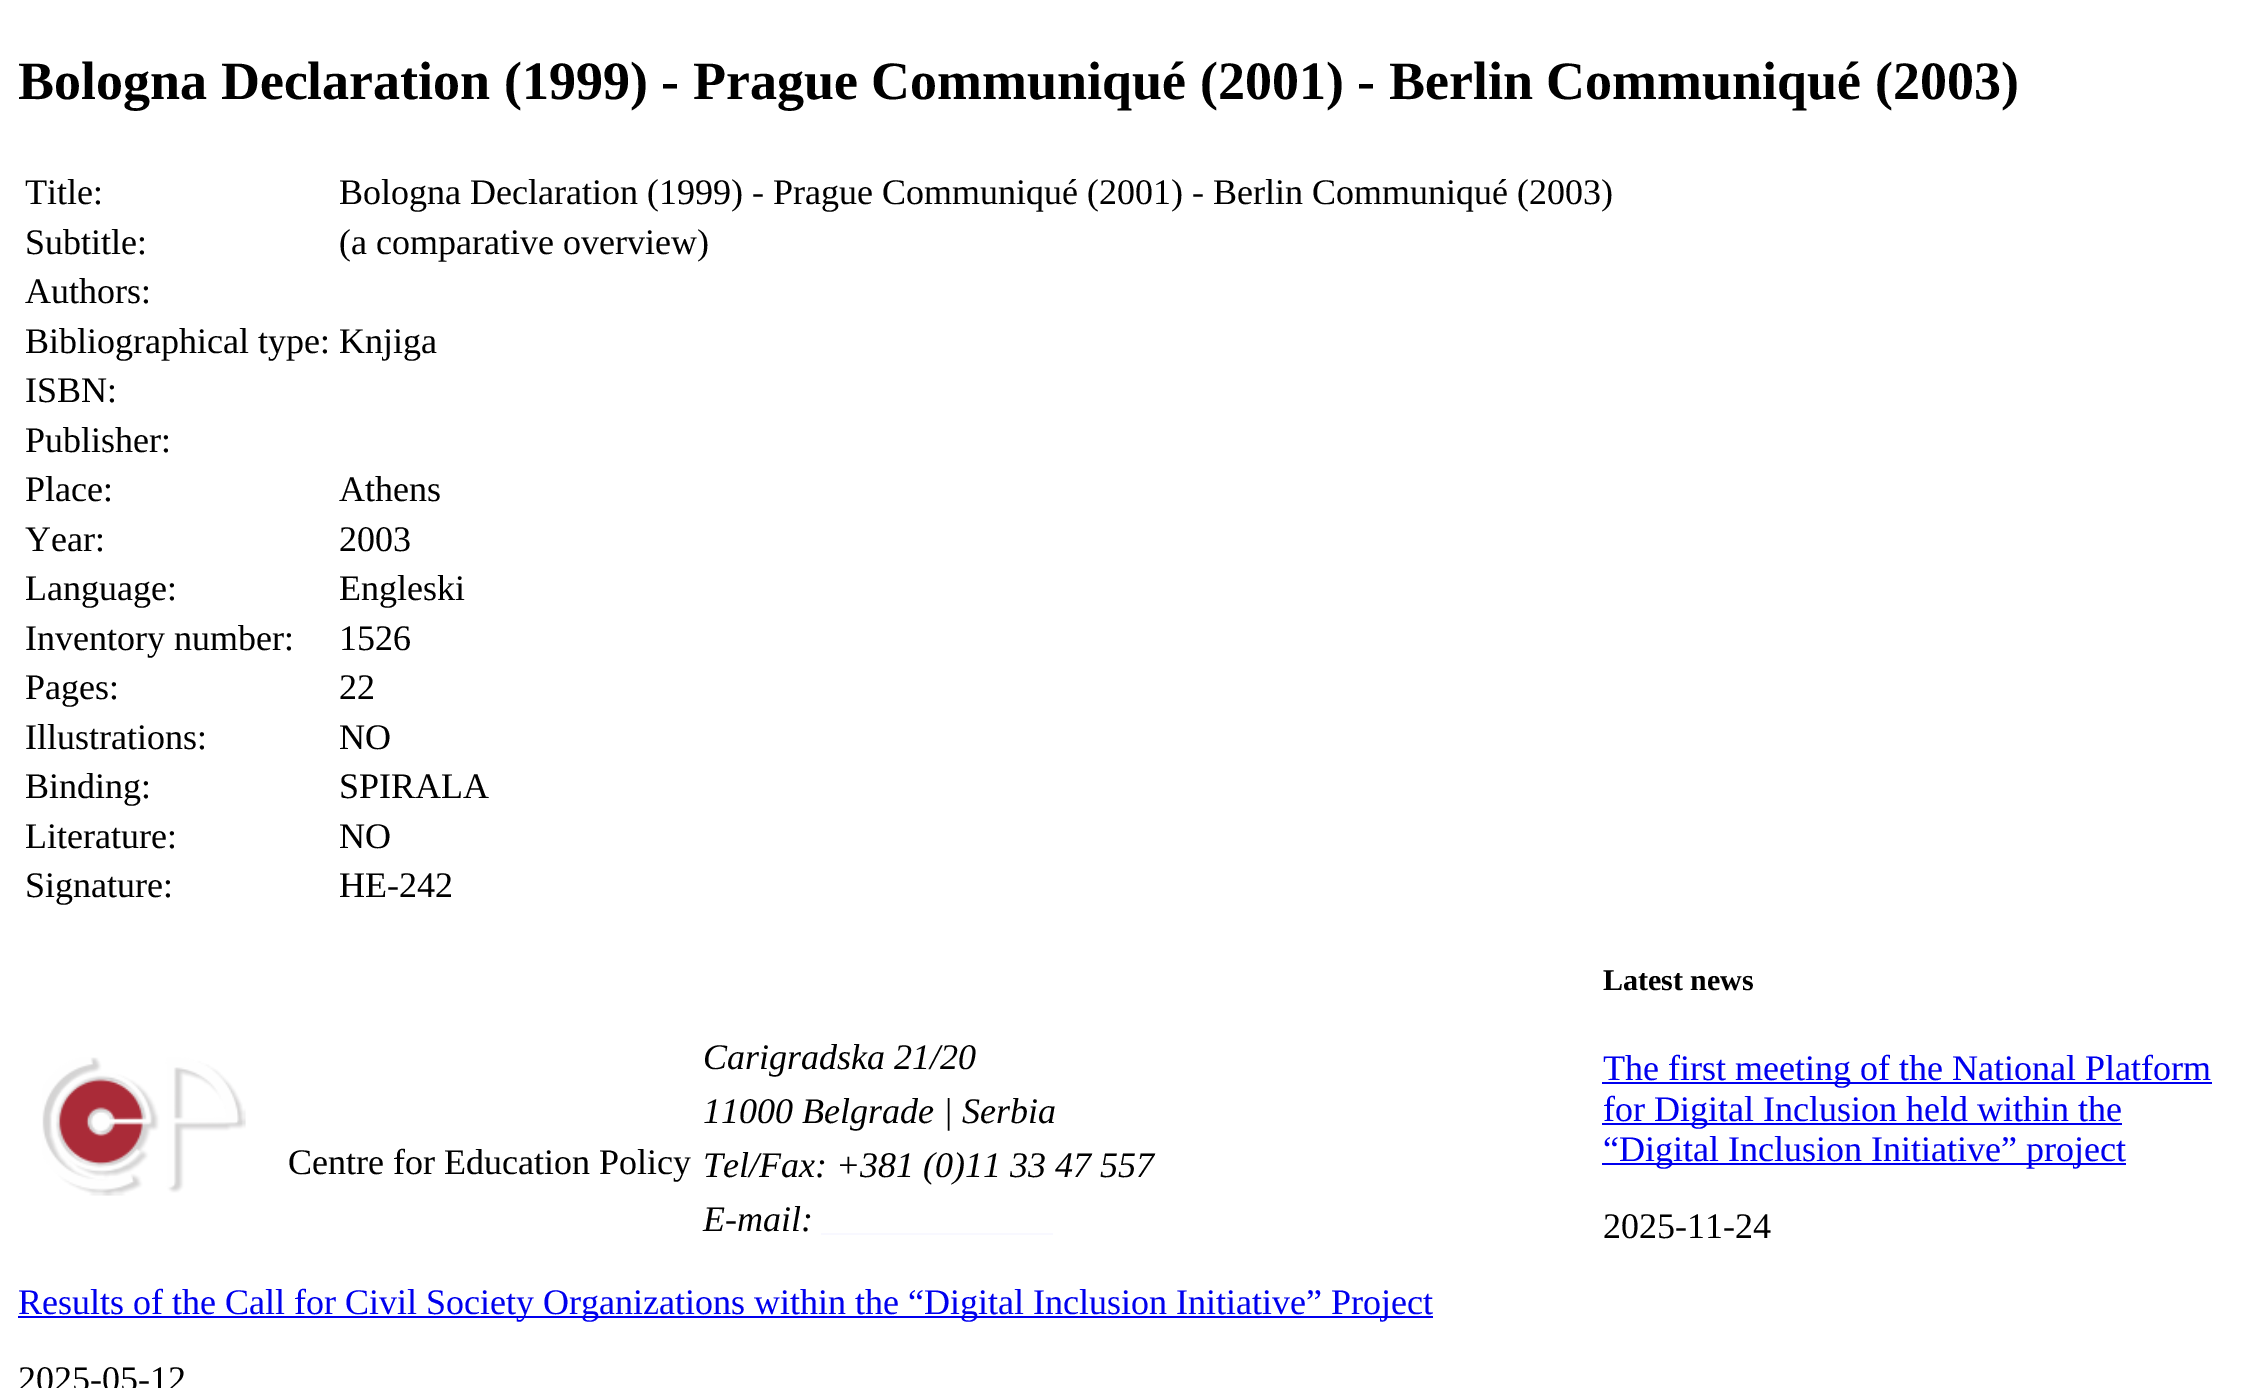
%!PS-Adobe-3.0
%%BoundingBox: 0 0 2251 1388
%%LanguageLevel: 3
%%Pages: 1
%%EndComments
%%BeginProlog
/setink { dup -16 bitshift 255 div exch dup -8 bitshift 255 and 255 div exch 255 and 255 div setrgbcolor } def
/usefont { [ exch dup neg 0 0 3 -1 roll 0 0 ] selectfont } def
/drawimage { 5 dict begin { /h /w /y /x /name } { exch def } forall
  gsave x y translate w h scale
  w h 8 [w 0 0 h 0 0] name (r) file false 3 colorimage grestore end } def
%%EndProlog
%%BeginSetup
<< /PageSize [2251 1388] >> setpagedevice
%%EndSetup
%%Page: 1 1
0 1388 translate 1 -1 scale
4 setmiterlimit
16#FFFFFF setink
0 0 2251 1388 rectfill
/LiberationSerif-Bold 54 usefont
16#000000 setink
18 99 moveto (Bologna Declaration \(1999\) - Prague Communiqué \(2001\) - Berlin Communiqué \(2003\)) show
/LiberationSerif-Regular 36 usefont
[
    [(Title:) 25 204]
    [(Bologna Declaration \(1999\) - Prague Communiqué \(2001\) - Berlin Communiqué \(2003\)) 339 204]
    [(Subtitle:) 25 254]
    [(\(a comparative overview\)) 339 254]
    [(Authors:) 25 303]
    [(Bibliographical type: Knjiga) 25 353]
    [(ISBN:) 25 402]
    [(Publisher:) 25 452]
    [(Place:) 25 501]
    [(Athens) 339 501]
    [(Year:) 25 551]
    [(2003) 339 551]
    [(Language:) 25 600]
    [(Engleski) 339 600]
    [(Inventory number:) 25 650]
    [(1526) 339 650]
    [(Pages:) 25 699]
    [(22) 339 699]
    [(Illustrations:) 25 749]
    [(NO) 339 749]
    [(Binding:) 25 798]
    [(SPIRALA) 339 798]
    [(Literature:) 25 848]
    [(NO) 339 848]
    [(Signature:) 25 897]
    [(HE-242) 339 897]
] { aload pop moveto show } forall
/LiberationSerif-Bold 30 usefont
1603 990 moveto (Latest news) show
16#0000EE setink
1602 1082 610 2 rectfill
/LiberationSerif-Regular 36 usefont
1603 1080 moveto (The first meeting of the National Platform) show
1602 1123 520 2 rectfill
1603 1121 moveto (for Digital Inclusion held within the) show
1602 1163 524 2 rectfill
1603 1161 moveto (“Digital Inclusion Initiative” project) show
16#000000 setink
1603 1238 moveto (2025-11-24) show
16#0000EE setink
18 1316 1415 2 rectfill
18 1314 moveto (Results of the Call for Civil Society Organizations within the “Digital Inclusion Initiative” Project) show
16#000000 setink
18 1391 moveto (2025-05-12) show
(img1.raw) 42 1057 204 139 drawimage
288 1174 moveto (Centre for Education Policy) show
/LiberationSerif-Italic 36 usefont
[
    [(Carigradska 21/20) 703 1069]
    [(11000 Belgrade | Serbia) 703 1123]
    [(Tel/Fax: +381 \(0\)11 33 47 557) 703 1177]
    [(E-mail:) 703 1231]
] { aload pop moveto show } forall
16#F8F8FF setink
821 1233 232 2 rectfill
showpage
%%EOF
